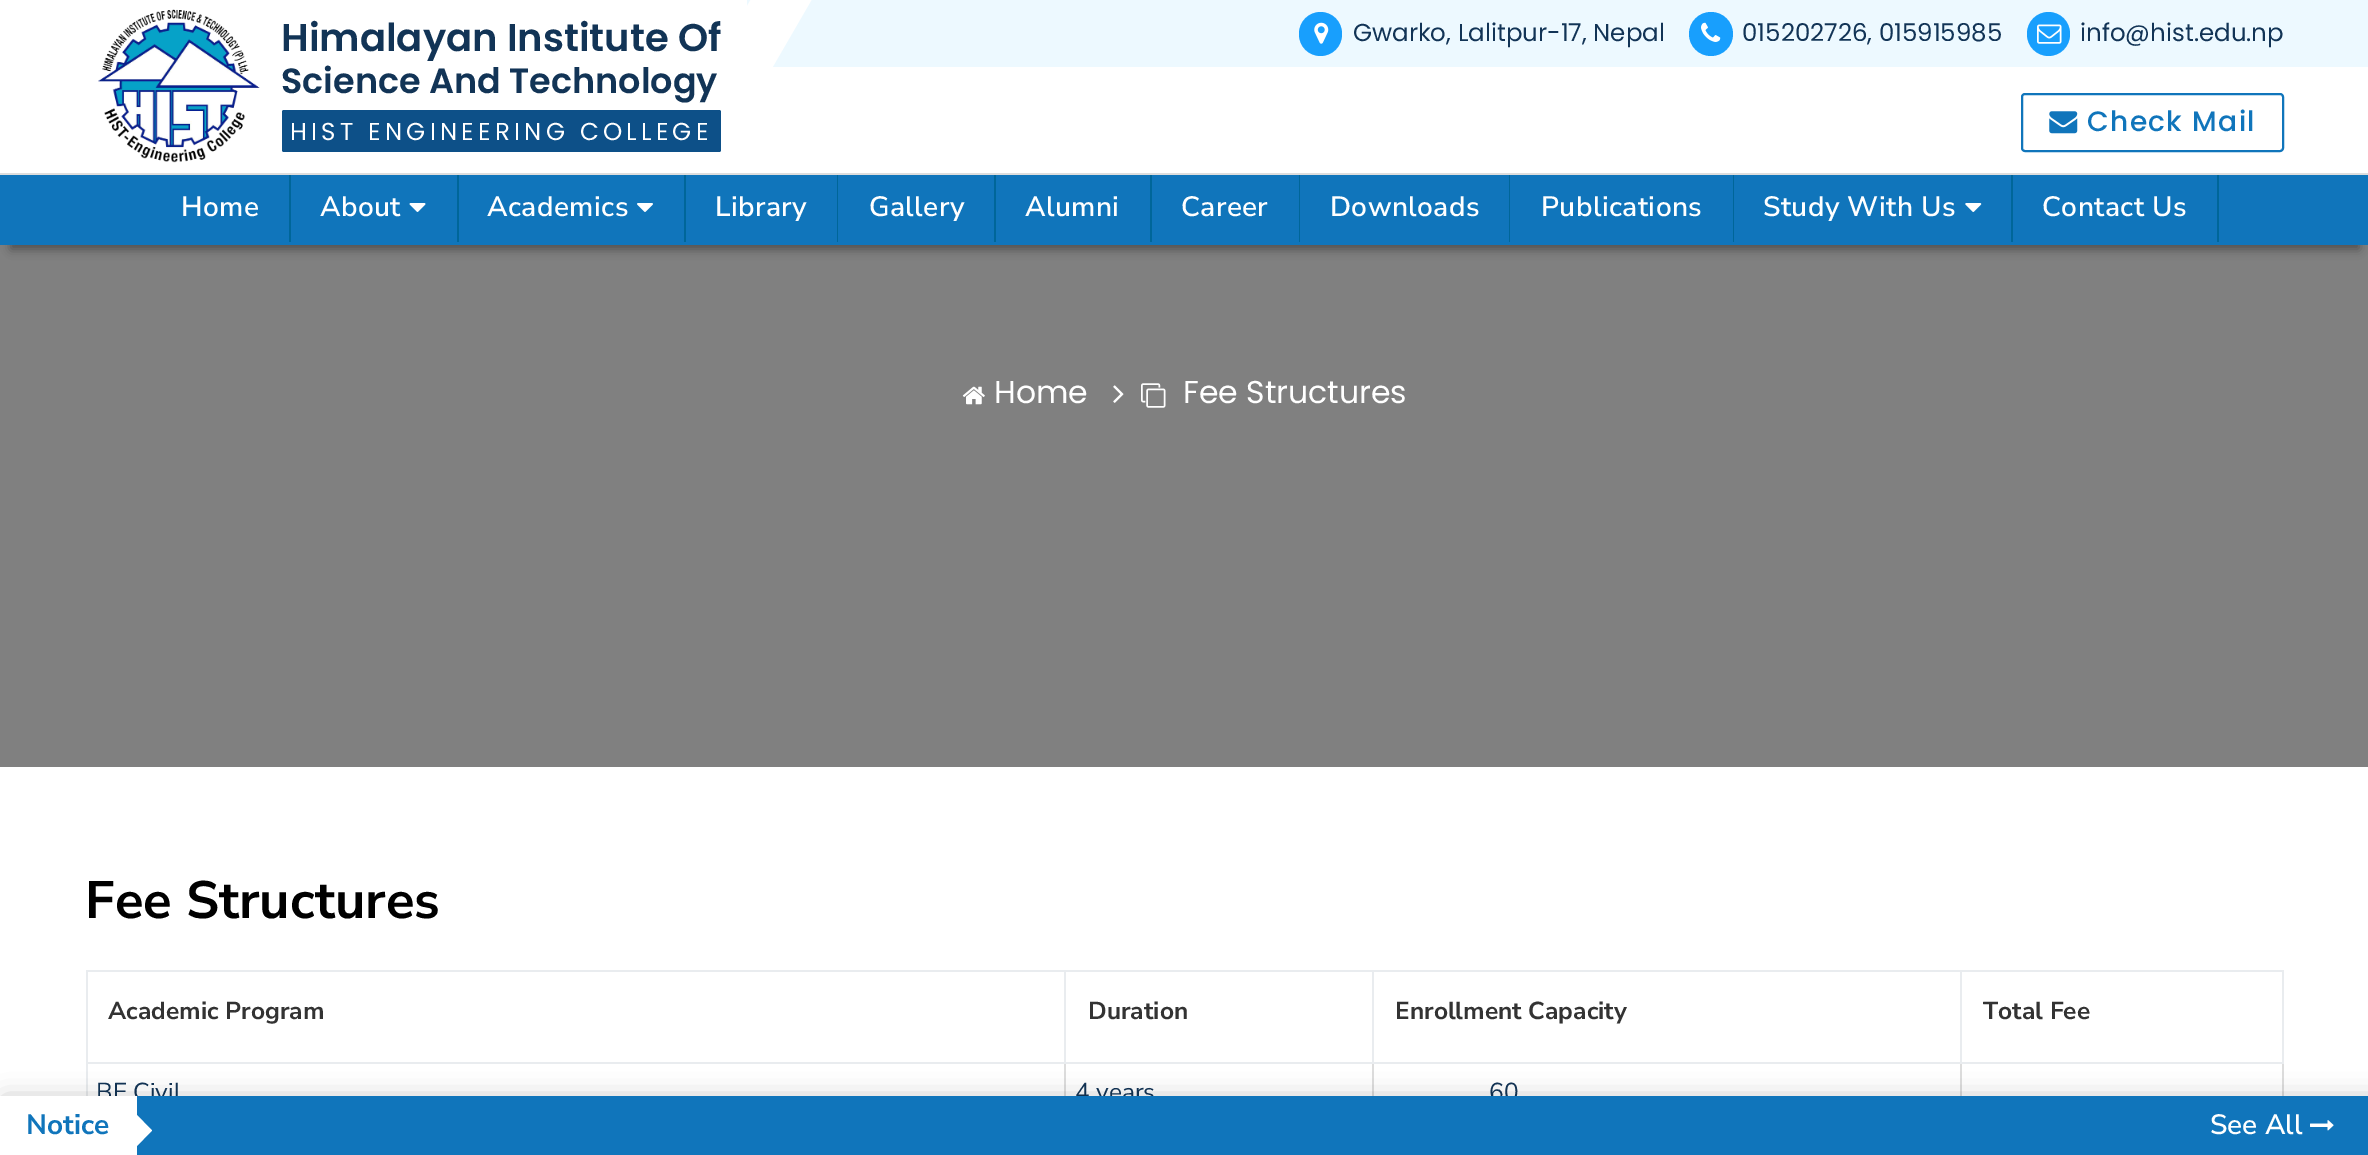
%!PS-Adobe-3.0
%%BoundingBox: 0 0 2368 1155
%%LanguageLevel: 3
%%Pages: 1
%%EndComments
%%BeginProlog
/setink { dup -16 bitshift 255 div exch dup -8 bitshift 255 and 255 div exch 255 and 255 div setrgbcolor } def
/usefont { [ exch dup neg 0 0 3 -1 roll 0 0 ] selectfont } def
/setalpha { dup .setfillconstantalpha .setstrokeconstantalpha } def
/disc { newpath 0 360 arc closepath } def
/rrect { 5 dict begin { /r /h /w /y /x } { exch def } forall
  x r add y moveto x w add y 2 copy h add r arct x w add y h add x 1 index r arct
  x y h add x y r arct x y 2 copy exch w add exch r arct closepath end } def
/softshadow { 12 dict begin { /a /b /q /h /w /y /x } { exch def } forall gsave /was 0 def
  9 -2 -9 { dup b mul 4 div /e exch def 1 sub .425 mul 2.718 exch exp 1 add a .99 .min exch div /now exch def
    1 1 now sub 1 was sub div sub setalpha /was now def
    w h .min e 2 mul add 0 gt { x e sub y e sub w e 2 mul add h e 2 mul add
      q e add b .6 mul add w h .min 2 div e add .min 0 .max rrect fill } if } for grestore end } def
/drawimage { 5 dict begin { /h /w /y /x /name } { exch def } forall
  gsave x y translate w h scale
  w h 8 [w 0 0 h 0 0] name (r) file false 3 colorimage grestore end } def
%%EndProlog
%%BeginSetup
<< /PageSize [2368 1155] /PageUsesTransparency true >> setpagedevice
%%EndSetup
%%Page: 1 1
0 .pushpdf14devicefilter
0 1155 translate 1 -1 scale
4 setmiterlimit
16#FFFFFF setink
0 0 2368 1155 rectfill
16#DDDDDD setink
0 173 2368 2 rectfill
(img1.raw) 98 9 162 154 drawimage
16#EDF9FF setink
747 0 1621 67 rectfill
16#FFFFFF setink
788 -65 moveto 834 -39 lineto 746 113 lineto 701 86 lineto closepath fill
/Poppins-SemiBold 38.5 usefont
16#123456 setink
281 51 moveto (Himalayan Institute Of) show
/Poppins-SemiBold 35 usefont
281 93 moveto (Science And Technology) show
16#0D5088 setink
282 110 439 42 2 rrect fill
/Poppins-Regular 24.5 usefont
16#FFFFFF setink
290 140 moveto 4.2 0 (HIST ENGINEERING COLLEGE) ashow
16#1075BB setink
2 setlinewidth
2022 94 261 57 3 rrect stroke
(img2.raw) 2049 111 29 23 drawimage
/Poppins-Medium 28 usefont
2087 131 moveto 1.4 0 (Check Mail) ashow
16#189FFD setink
1299 12 43 44 21.5 rrect fill
(img3.raw) 1314 22 15 22 drawimage
/Poppins-Regular 24.5 usefont
16#123456 setink
1353 41 moveto (Gwarko, Lalitpur-17, Nepal) show
16#189FFD setink
1711 34 22 disc fill
(img4.raw) 1701 22 20 20 drawimage
16#123456 setink
1742 41 moveto (015202726, 015915985) show
16#189FFD setink
2027 12 43 44 21.5 rrect fill
(img5.raw) 2037 24 25 20 drawimage
16#123456 setink
2080 41 moveto (info@hist.edu.np) show
16#808080 setink
0 245 2368 522 rectfill
16#000000 setink
11 200 2348 49 0 5 0.4 softshadow
16#1075BB setink
0 175 2368 70 rectfill
16#006699 setink
289 175 2 67 rectfill
/NunitoSans-SemiBold 28 usefont
16#FFFFFF setink
181 216 moveto 0.4 0 (Home) ashow
16#006699 setink
457 175 2 67 rectfill
16#FFFFFF setink
320 216 moveto 0.4 0 (About) ashow
(img6.raw) 409 203 17 9 drawimage
16#006699 setink
684 175 2 67 rectfill
16#FFFFFF setink
487 216 moveto 0.4 0 (Academics) ashow
(img7.raw) 637 203 16 9 drawimage
16#006699 setink
837 175 1 67 rectfill
16#FFFFFF setink
715 216 moveto 0.4 0 (Library) ashow
16#006699 setink
994 175 2 67 rectfill
16#FFFFFF setink
869 216 moveto 0.4 0 (Gallery) ashow
16#006699 setink
1150 175 2 67 rectfill
16#FFFFFF setink
1025 216 moveto 0.4 0 (Alumni) ashow
16#006699 setink
1299 175 1 67 rectfill
16#FFFFFF setink
1181 216 moveto 0.4 0 (Career) ashow
16#006699 setink
1509 175 1 67 rectfill
16#FFFFFF setink
1330 216 moveto 0.4 0 (Downloads) ashow
16#006699 setink
1733 175 1 67 rectfill
16#FFFFFF setink
1541 216 moveto 0.4 0 (Publications) ashow
16#006699 setink
2011 175 2 67 rectfill
16#FFFFFF setink
1763 216 moveto 0.4 0 (Study With Us) ashow
(img8.raw) 1965 203 17 9 drawimage
16#006699 setink
2217 175 2 67 rectfill
16#FFFFFF setink
2042 216 moveto 0.4 0 (Contact Us) ashow
(img9.raw) 962 386 23 19 drawimage
/Poppins-Regular 31.5 usefont
994 403 moveto (Home) show
(img10.raw) 1113 385 11 18 drawimage
(img11.raw) 1141 383 25 25 drawimage
1183 403 moveto (Fee Structures) show
/NunitoSans-Bold 52.5 usefont
16#000000 setink
85 918 moveto (Fee Structures) show
16#E9ECEF setink
86 970 2198 2 rectfill
86 970 2 126 rectfill
/NunitoSans-Bold 24.5 usefont
16#333333 setink
108 1019 moveto (Academic Program) show
[
    [2282 1062 2 34 16#DDDDDD]
    [2282 970 2 94 16#E9ECEF]
    [1960 1062 2 34 16#DDDDDD]
    [1960 1062 324 2 16#E9ECEF]
    [1960 970 2 94 16#E9ECEF]
    [1372 1062 2 34 16#DDDDDD]
    [1372 1062 590 2 16#E9ECEF]
    [1372 970 2 94 16#E9ECEF]
    [86 1062 980 2 16#E9ECEF]
    [1064 1062 2 34 16#DDDDDD]
    [1064 1062 310 2 16#E9ECEF]
    [1064 970 2 94 16#E9ECEF]
] { aload pop setink rectfill } forall
16#333333 setink
[
    [(Duration) 1088 1019]
    [(Enrollment Capacity) 1395 1019]
    [(Total Fee) 1983 1019]
] { aload pop moveto show } forall
/NunitoSans-Regular 24.5 usefont
16#123456 setink
[
    [(BE Civil) 96 1100]
    [(4 years) 1075 1100]
    [(60) 1489 1100]
] { aload pop moveto show } forall
16#000000 setink
5 1101 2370 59 0 13 0.3 softshadow
16#1075BB setink
137 1096 2231 59 rectfill
16#FFFFFF setink
0 1096 137 59 rectfill
/NunitoSans-Bold 28 usefont
16#1075BB setink
26 1134 moveto (Notice) show
16#FFFFFF setink
135 1148 moveto 135 1113 lineto 152 1130.5 lineto closepath fill
/NunitoSans-SemiBold 28 usefont
2210 1134 moveto (See All) show
(img12.raw) 2310 1120 24 11 drawimage
.poppdf14devicefilter showpage
%%EOF
